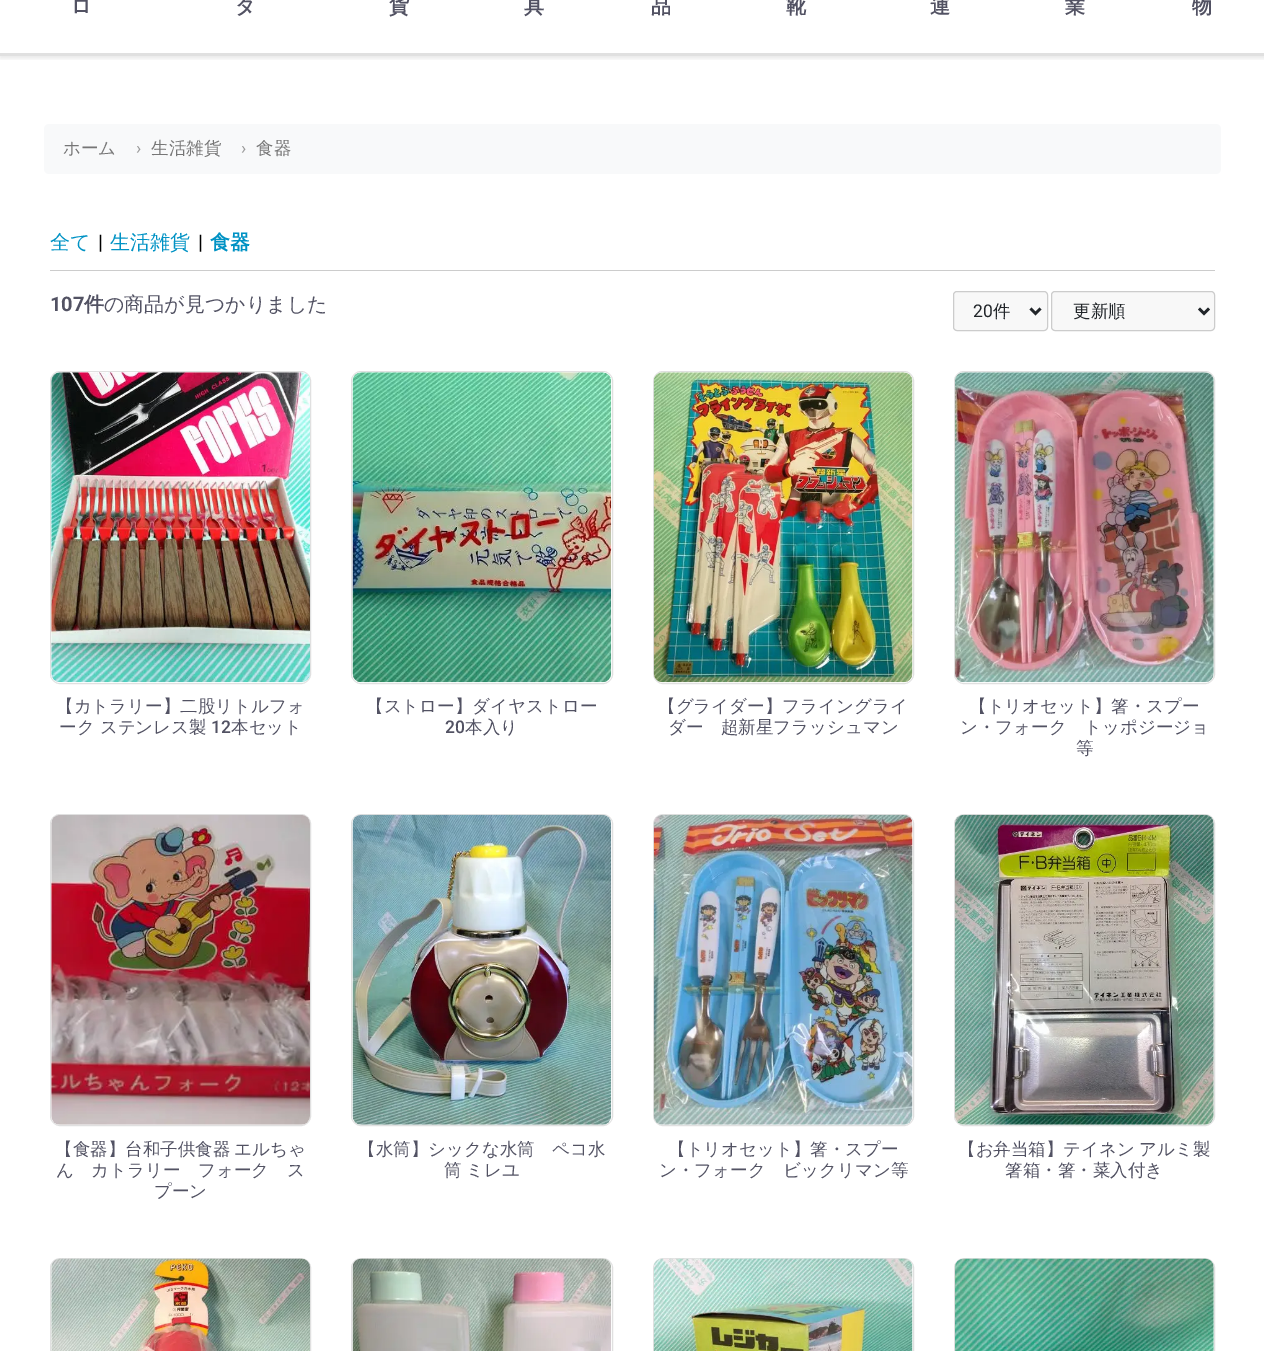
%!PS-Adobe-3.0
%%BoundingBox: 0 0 1264 1351
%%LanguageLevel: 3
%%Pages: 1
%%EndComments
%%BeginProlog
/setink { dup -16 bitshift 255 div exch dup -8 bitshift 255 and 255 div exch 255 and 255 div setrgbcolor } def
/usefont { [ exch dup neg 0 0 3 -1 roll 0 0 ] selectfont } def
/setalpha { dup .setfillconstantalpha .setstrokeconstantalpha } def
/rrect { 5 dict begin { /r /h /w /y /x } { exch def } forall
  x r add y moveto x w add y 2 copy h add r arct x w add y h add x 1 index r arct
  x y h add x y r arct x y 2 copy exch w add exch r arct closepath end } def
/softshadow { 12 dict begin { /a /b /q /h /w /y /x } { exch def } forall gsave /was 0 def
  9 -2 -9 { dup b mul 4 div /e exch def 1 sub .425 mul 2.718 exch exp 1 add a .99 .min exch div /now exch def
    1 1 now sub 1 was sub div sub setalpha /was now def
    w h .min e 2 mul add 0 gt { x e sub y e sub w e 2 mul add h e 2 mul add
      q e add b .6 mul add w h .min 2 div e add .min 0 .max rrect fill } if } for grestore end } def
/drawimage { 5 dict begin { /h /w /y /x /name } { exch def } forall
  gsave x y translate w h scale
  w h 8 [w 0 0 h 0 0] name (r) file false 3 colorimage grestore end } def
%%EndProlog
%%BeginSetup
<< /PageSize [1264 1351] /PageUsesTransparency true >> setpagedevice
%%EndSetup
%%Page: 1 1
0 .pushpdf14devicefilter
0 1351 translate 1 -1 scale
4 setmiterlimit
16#FFFFFF setink
0 0 1264 1351 rectfill
gsave
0 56 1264 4 rectclip
16#000000 setink
0 -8 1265 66 0 2.5 0.1 softshadow
grestore
16#E0E0E0 setink
0 53 1264 3 rectfill
/WenQuanYiZenHei-Bold 20 usefont
16#525263 setink
[
    [(ロ) 71 13]
    [(タ) 235 13]
    [(貨) 389 13]
    [(具) 524 13]
    [(品) 651 13]
    [(靴) 786 13]
    [(連) 930 13]
    [(業) 1065 13]
    [(物) 1192 13]
] { aload pop moveto show } forall
16#F8F9FA setink
44 124 1177 50 5 rrect fill
/WenQuanYiZenHei-Medium 17.5 usefont
16#767676 setink
63 154 moveto (ホーム) show
/Roboto-Regular 17.5 usefont
16#999999 setink
136 154 moveto (›) show
/WenQuanYiZenHei-Medium 17.5 usefont
16#767676 setink
151 154 moveto (生活雑貨) show
/Roboto-Regular 17.5 usefont
16#999999 setink
241 154 moveto (›) show
/WenQuanYiZenHei-Medium 17.5 usefont
16#767676 setink
256 154 moveto (食器) show
/WenQuanYiZenHei-Medium 20 usefont
16#0092C4 setink
50 249 moveto (全て) show
/Roboto-Regular 20 usefont
16#000000 setink
98 249 moveto (|) show
/WenQuanYiZenHei-Medium 20 usefont
16#0092C4 setink
110 249 moveto (生活雑貨) show
/Roboto-Regular 20 usefont
16#000000 setink
198 249 moveto (|) show
/WenQuanYiZenHei-Bold 20 usefont
16#0092C4 setink
210 249 moveto (食器) show
16#CCCCCC setink
50 270 1165 1 rectfill
/Roboto-Bold 20 usefont
16#525263 setink
50 311 moveto (107) show
/WenQuanYiZenHei-Bold 20 usefont
84 311 moveto (件) show
/WenQuanYiZenHei-Medium 20 usefont
104 311 moveto (の商品が見つかりました) show
16#F8F8F8 setink
953.5 291.5 94 39 3.5 rrect gsave fill grestore
16#CCCCCC setink
stroke
16#212529 setink
2.5 setlinewidth
1030.5 308.5 moveto 1035.5 313.5 lineto 1040.5 308.5 lineto stroke
/Roboto-Regular 17.5 usefont
973 317 moveto (20) show
/WenQuanYiZenHei-Medium 17.5 usefont
993 317 moveto (件) show
16#F8F8F8 setink
1051.5 291.5 163 39 3.5 rrect gsave fill grestore
16#CCCCCC setink
1 setlinewidth
stroke
16#212529 setink
2.5 setlinewidth
1199 308.5 moveto 1204 313.5 lineto 1209 308.5 lineto stroke
1073 317 moveto (更新順) show
16#E0E0E0 setink
1 setlinewidth
50.5 371.5 260 312 9.5 rrect stroke
(img1.raw) 51 372 259 311 drawimage
16#525263 setink
56 712 moveto (【カトラリー】二股リトルフォ) show
59 733 moveto (ーク ステンレス製) show
/Roboto-Medium 17.5 usefont
211 733 moveto (12) show
/WenQuanYiZenHei-Medium 17.5 usefont
231 733 moveto (本セット) show
16#E0E0E0 setink
351.5 371.5 261 312 9.5 rrect stroke
(img2.raw) 352 372 260 311 drawimage
16#525263 setink
366 712 moveto (【ストロー】ダイヤストロー) show
/Roboto-Medium 17.5 usefont
445 733 moveto (20) show
/WenQuanYiZenHei-Medium 17.5 usefont
465 733 moveto (本入り) show
16#E0E0E0 setink
653.5 371.5 260 312 9.5 rrect stroke
(img3.raw) 653 372 260 311 drawimage
16#525263 setink
658 712 moveto (【グライダー】フライングライ) show
668 733 moveto (ダー　超新星フラッシュマン) show
16#E0E0E0 setink
954.5 371.5 260 312 9.5 rrect stroke
(img4.raw) 955 372 259 311 drawimage
16#525263 setink
[
    [(【トリオセット】箸・スプー) 969 712]
    [(ン・フォーク　トッポジージョ) 960 733]
    [(等) 1076 754]
] { aload pop moveto show } forall
16#E0E0E0 setink
50.5 814.5 260 311 9.5 rrect stroke
(img5.raw) 51 815 259 310 drawimage
16#525263 setink
55 1155 moveto -1 0 32 (【食器】台和子供食器 エルちゃ) widthshow
56 1176 moveto (ん　カトラリー　フォーク　ス) show
154 1197 moveto (プーン) show
16#E0E0E0 setink
351.5 814.5 261 311 9.5 rrect stroke
(img6.raw) 352 814 260 311 drawimage
16#525263 setink
358 1155 moveto (【水筒】シックな水筒　ペコ水) show
444 1176 moveto -1 0 32 (筒 ミレユ) widthshow
16#E0E0E0 setink
653.5 814.5 260 311 9.5 rrect stroke
(img7.raw) 653 814 260 311 drawimage
16#525263 setink
668 1155 moveto (【トリオセット】箸・スプー) show
659 1176 moveto (ン・フォーク　ビックリマン等) show
16#E0E0E0 setink
954.5 814.5 260 311 9.5 rrect stroke
(img8.raw) 955 814 259 311 drawimage
16#525263 setink
958 1155 moveto -1 0 32 (【お弁当箱】テイネン アルミ製) widthshow
1005 1176 moveto (箸箱・箸・菜入付き) show
16#E0E0E0 setink
50.5 1258.5 260 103 9.5 rrect stroke
(img9.raw) 51 1258 259 93 drawimage
351.5 1258.5 261 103 9.5 rrect stroke
(img10.raw) 352 1258 260 93 drawimage
653.5 1258.5 260 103 9.5 rrect stroke
(img11.raw) 653 1258 260 93 drawimage
954.5 1258.5 260 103 9.5 rrect stroke
(img12.raw) 955 1258 259 93 drawimage
.poppdf14devicefilter showpage
%%EOF
